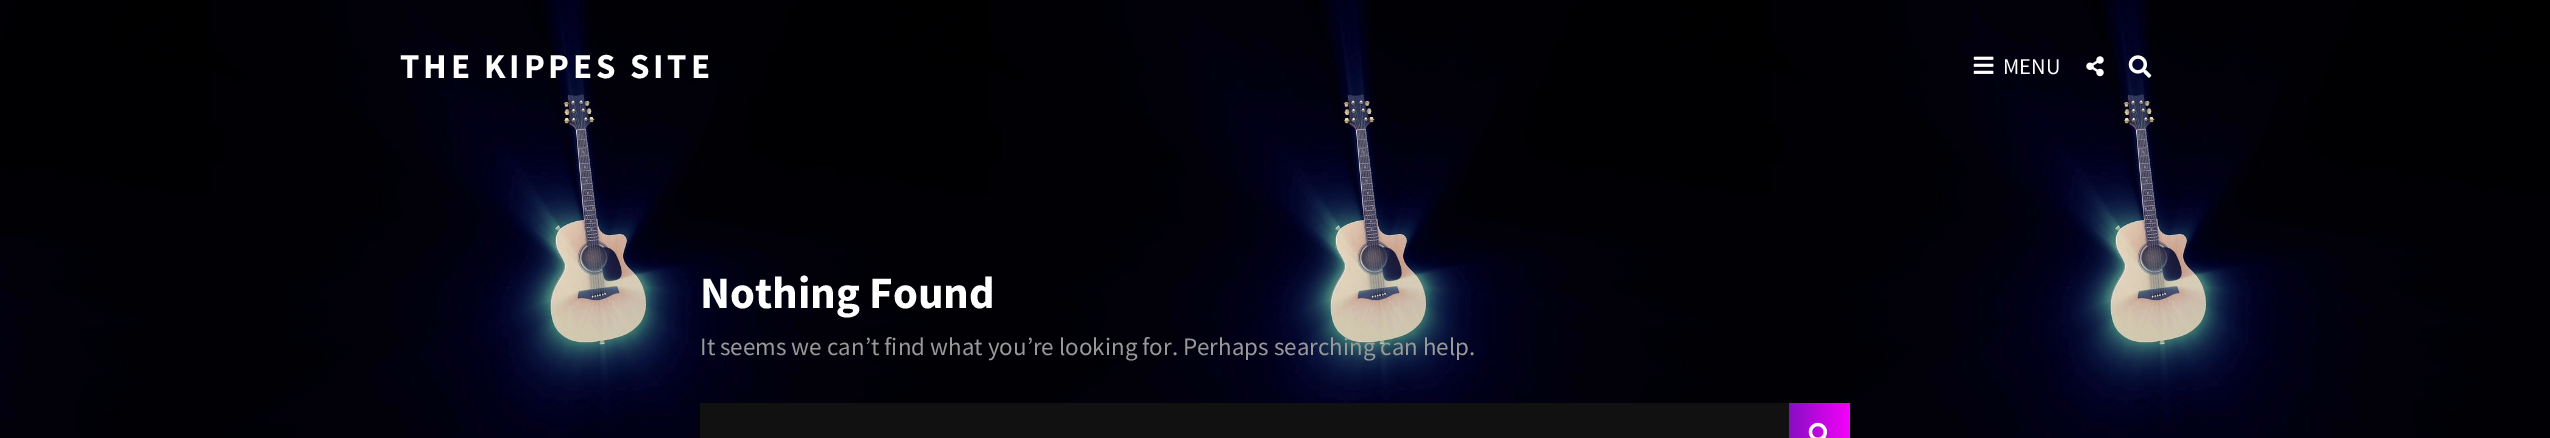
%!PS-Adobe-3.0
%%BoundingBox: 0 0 2550 438
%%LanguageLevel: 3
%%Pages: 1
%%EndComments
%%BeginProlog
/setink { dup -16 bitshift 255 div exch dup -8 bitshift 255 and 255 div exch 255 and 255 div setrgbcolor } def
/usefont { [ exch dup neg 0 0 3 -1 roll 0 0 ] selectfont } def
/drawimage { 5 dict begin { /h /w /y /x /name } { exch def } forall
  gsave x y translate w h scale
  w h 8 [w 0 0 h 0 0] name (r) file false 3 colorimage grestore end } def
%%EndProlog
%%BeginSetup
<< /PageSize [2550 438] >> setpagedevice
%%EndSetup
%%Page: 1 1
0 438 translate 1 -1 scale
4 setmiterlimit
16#FFFFFF setink
0 0 2550 438 rectfill
(img1.raw) 0 0 2550 438 drawimage
/SourceSansPro-Bold 35 usefont
400 78 moveto 3.75 0 (THE KIPPES SITE) ashow
(img2.raw) 1973 56 21 18 drawimage
/SourceSansPro-Regular 22.5 usefont
2003 74 moveto (MENU) show
(img3.raw) 2086 56 18 21 drawimage
(img4.raw) 2128 55 24 23 drawimage
/SourceSansPro-Bold 45 usefont
700 308 moveto (Nothing Found) show
/SourceSansPro-Regular 25 usefont
16#999999 setink
700 355 moveto (It seems we can’t find what you’re looking for. Perhaps searching can help.) show
16#111111 setink
700 403 1089 35 rectfill
gsave 1789 403 moveto 1850 403 lineto 1850 438 lineto 1789 438 lineto closepath clip newpath
<< /ShadingType 2 /ColorSpace /DeviceRGB /Coords [1789 435 1850 435] /Extend [true true] /Function << /FunctionType 2 /Domain [0 1] /C0 [0.525 0.055 0.769] /C1 [0.969 0.004 0.984] /N 1 >> >> shfill grestore
(img5.raw) 1808 422 19 16 drawimage
showpage
%%EOF
